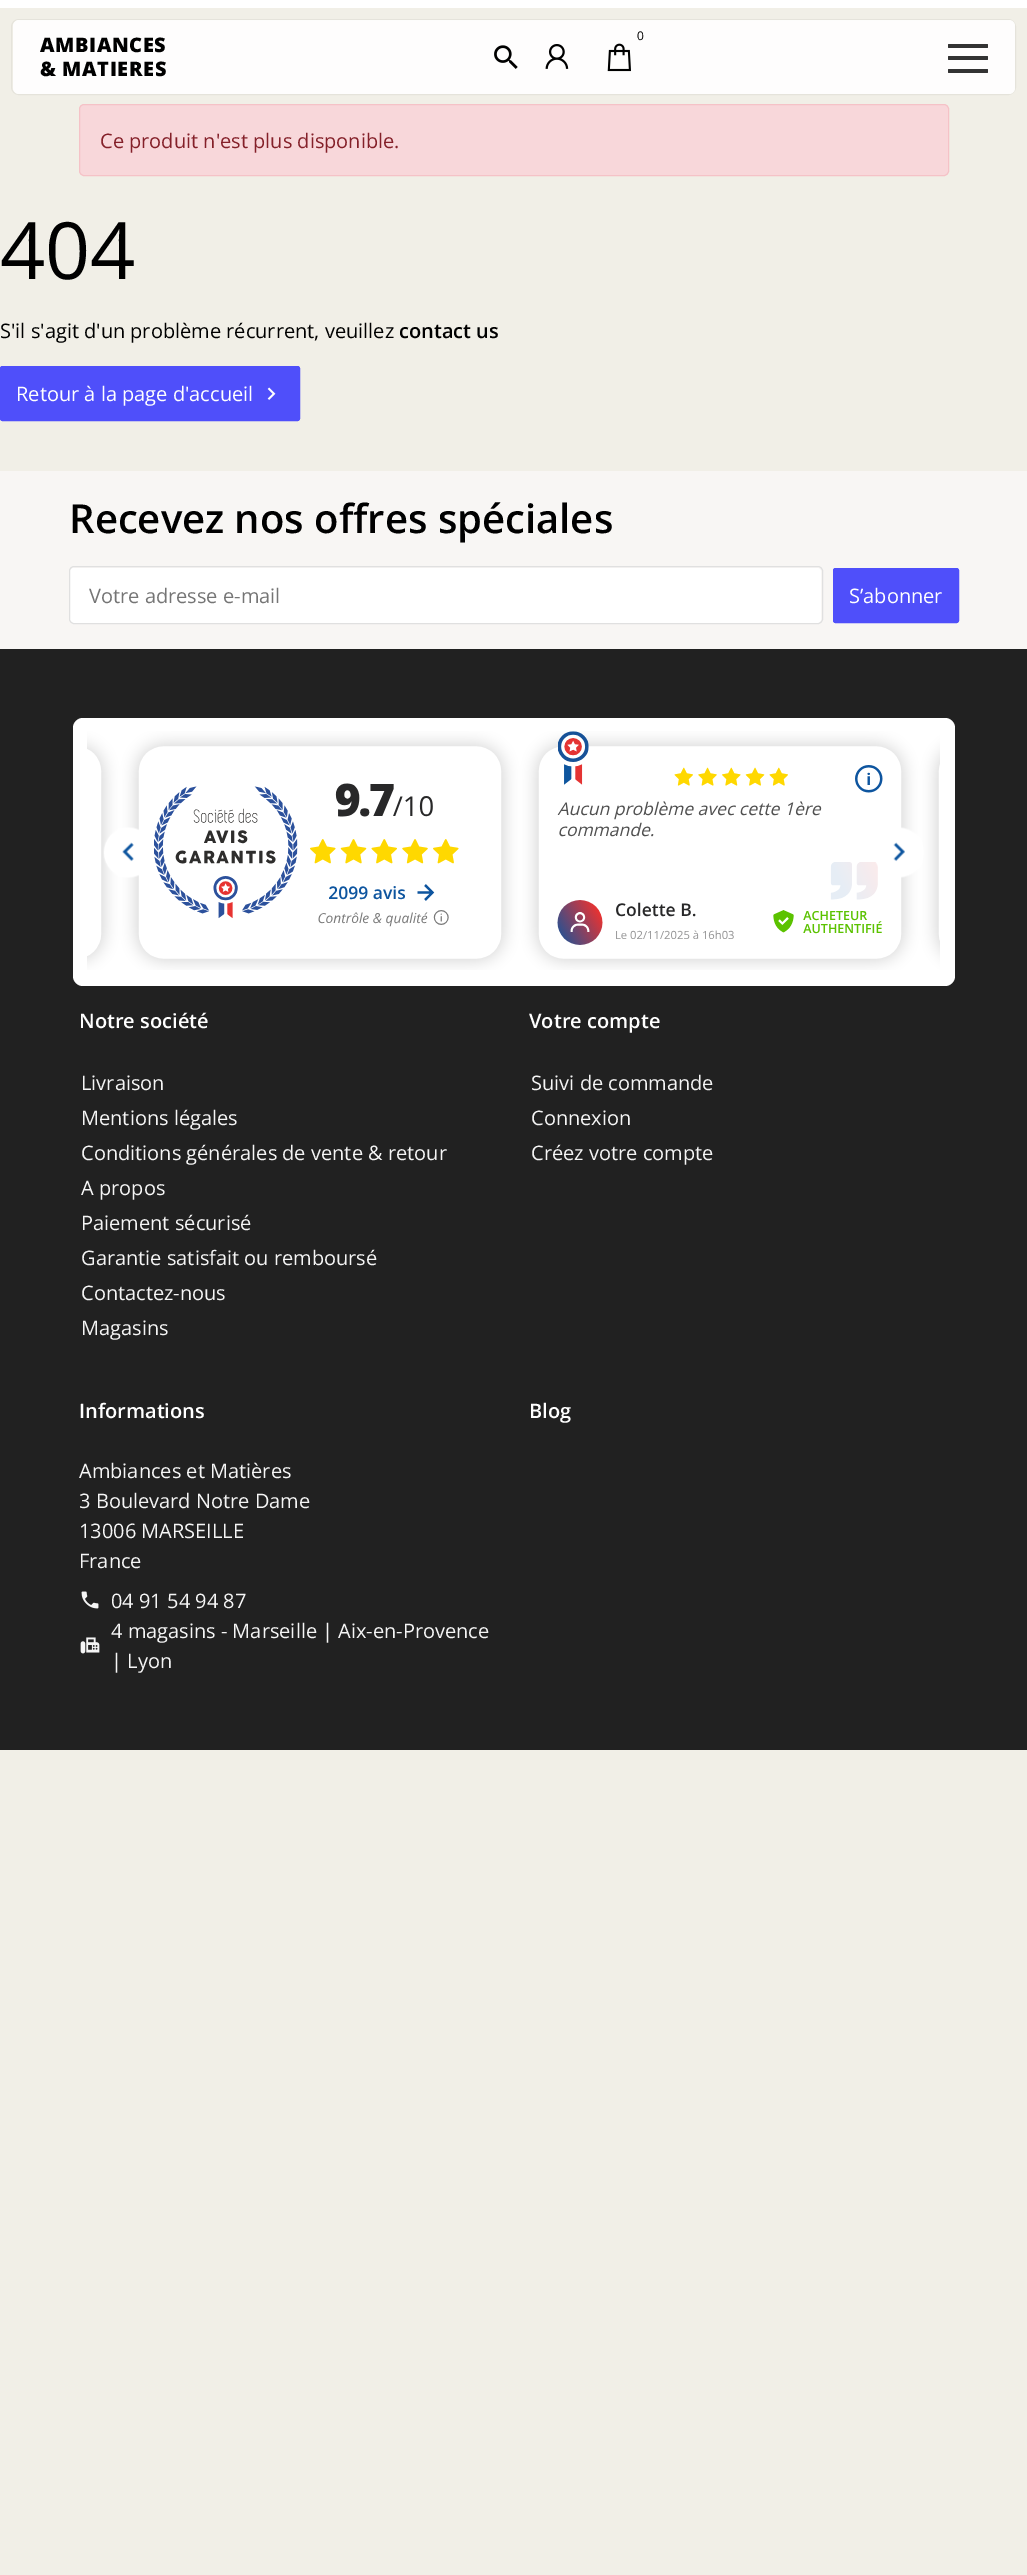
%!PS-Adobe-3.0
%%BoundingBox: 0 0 1027 2575
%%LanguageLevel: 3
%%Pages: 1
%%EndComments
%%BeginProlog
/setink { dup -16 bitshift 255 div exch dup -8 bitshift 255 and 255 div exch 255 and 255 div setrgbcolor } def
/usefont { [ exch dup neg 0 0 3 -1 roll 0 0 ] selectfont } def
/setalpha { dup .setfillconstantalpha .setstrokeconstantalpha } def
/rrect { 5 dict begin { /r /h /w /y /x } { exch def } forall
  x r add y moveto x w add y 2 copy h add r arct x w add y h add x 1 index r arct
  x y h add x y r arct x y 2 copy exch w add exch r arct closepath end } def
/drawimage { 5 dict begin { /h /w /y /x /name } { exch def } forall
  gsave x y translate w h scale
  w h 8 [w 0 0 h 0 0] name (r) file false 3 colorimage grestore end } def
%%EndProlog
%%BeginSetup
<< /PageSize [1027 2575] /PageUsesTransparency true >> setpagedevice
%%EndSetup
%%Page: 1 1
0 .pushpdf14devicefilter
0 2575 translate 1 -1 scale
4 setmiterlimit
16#F1EFE7 setink
0 0 1027 2575 rectfill
16#FFFFFF setink
0 0 1027 8 rectfill
16#E5E3DB setink
11.5 19.5 1004 75 7.5 rrect stroke
0.9 setalpha
16#FFFFFF setink
13 20 1002 74 6 rrect fill
/OpenSans-Regular 12 usefont
1 setalpha
16#000000 setink
637 40 moveto (0) show
(img1.raw) 607 43 24 29 drawimage
(img2.raw) 494 45 24 24 drawimage
(img3.raw) 545 44 24 25 drawimage
/OpenSans-ExtraBold 20 usefont
40 52 moveto 0.6 0 (AMBIANCES) ashow
40 76 moveto 0.6 0 (& MATIERES) ashow
16#333333 setink
948 44 40 4 1 rrect fill
948 56 40 4 1 rrect fill
948 69 40 4 1 rrect fill
16#F8D7DA setink
79.5 104.5 869 71 4.5 rrect gsave fill grestore
16#F5C2C7 setink
stroke
/OpenSans-Regular 20 usefont
16#842029 setink
100 148 moveto (Ce produit n'est plus disponible.) show
/OpenSans-Regular 79 usefont
16#000000 setink
0 279 moveto (404) show
/OpenSans-Regular 20 usefont
0 338 moveto (S'il s'agit d'un problème récurrent, veuillez) show
/OpenSans-SemiBold 20 usefont
399 338 moveto (contact us) show
16#4F4FFA setink
0.5 366.5 299 54 2 rrect gsave fill grestore
stroke
/OpenSans-Regular 20 usefont
16#FFFFFF setink
16 401 moveto (Retour à la page d'accueil) show
(img4.raw) 267 387 9 13 drawimage
16#F8F6F4 setink
0 471 1027 178 rectfill
/OpenSans-SemiBold 40 usefont
16#000000 setink
69 533 moveto (Recevez nos offres spéciales) show
16#FFFFFF setink
70 568 751 55 4 rrect fill
16#E0E0E0 setink
69.5 566.5 753 57 4.5 rrect stroke
/OpenSans-Regular 20 usefont
16#757575 setink
89 603 moveto (Votre adresse e-mail) show
16#4F4FFA setink
833.5 568.5 125 54 2 rrect gsave fill grestore
stroke
16#FFFFFF setink
849 603 moveto (S’abonner) show
16#212121 setink
0 649 1027 1101 rectfill
16#FFFFFF setink
73 718 882 268 10 rrect fill
(img5.raw) 87 731 853 239 drawimage
/OpenSans-SemiBold 20 usefont
79 1028 moveto (Notre société) show
/OpenSans-Regular 20 usefont
16#F5F5F5 setink
[
    [(Livraison) 81 1090]
    [(Mentions légales) 81 1125]
    [(Conditions générales de vente & retour) 81 1160]
    [(A propos) 81 1195]
    [(Paiement sécurisé) 81 1230]
    [(Garantie satisfait ou remboursé) 81 1265]
    [(Contactez-nous) 81 1300]
    [(Magasins) 81 1335]
] { aload pop moveto show } forall
/OpenSans-SemiBold 20 usefont
16#FFFFFF setink
529 1028 moveto (Votre compte) show
/OpenSans-Regular 20 usefont
16#F5F5F5 setink
[
    [(Suivi de commande) 531 1090]
    [(Connexion) 531 1125]
    [(Créez votre compte) 531 1160]
] { aload pop moveto show } forall
/OpenSans-SemiBold 20 usefont
16#FFFFFF setink
79 1418 moveto (Informations) show
/OpenSans-Regular 20 usefont
16#F5F5F5 setink
[
    [(Ambiances et Matières) 79 1478]
    [(3 Boulevard Notre Dame) 79 1508]
    [(13006 MARSEILLE) 79 1538]
    [(France) 79 1568]
] { aload pop moveto show } forall
(img6.raw) 81 1591 18 18 drawimage
111 1608 moveto (04 91 54 94 87) show
111 1638 moveto (4 magasins - Marseille | Aix-en-Provence) show
(img7.raw) 80 1637 20 17 drawimage
111 1668 moveto (| Lyon) show
/OpenSans-SemiBold 20 usefont
16#FFFFFF setink
529 1418 moveto (Blog) show
.poppdf14devicefilter showpage
%%EOF
